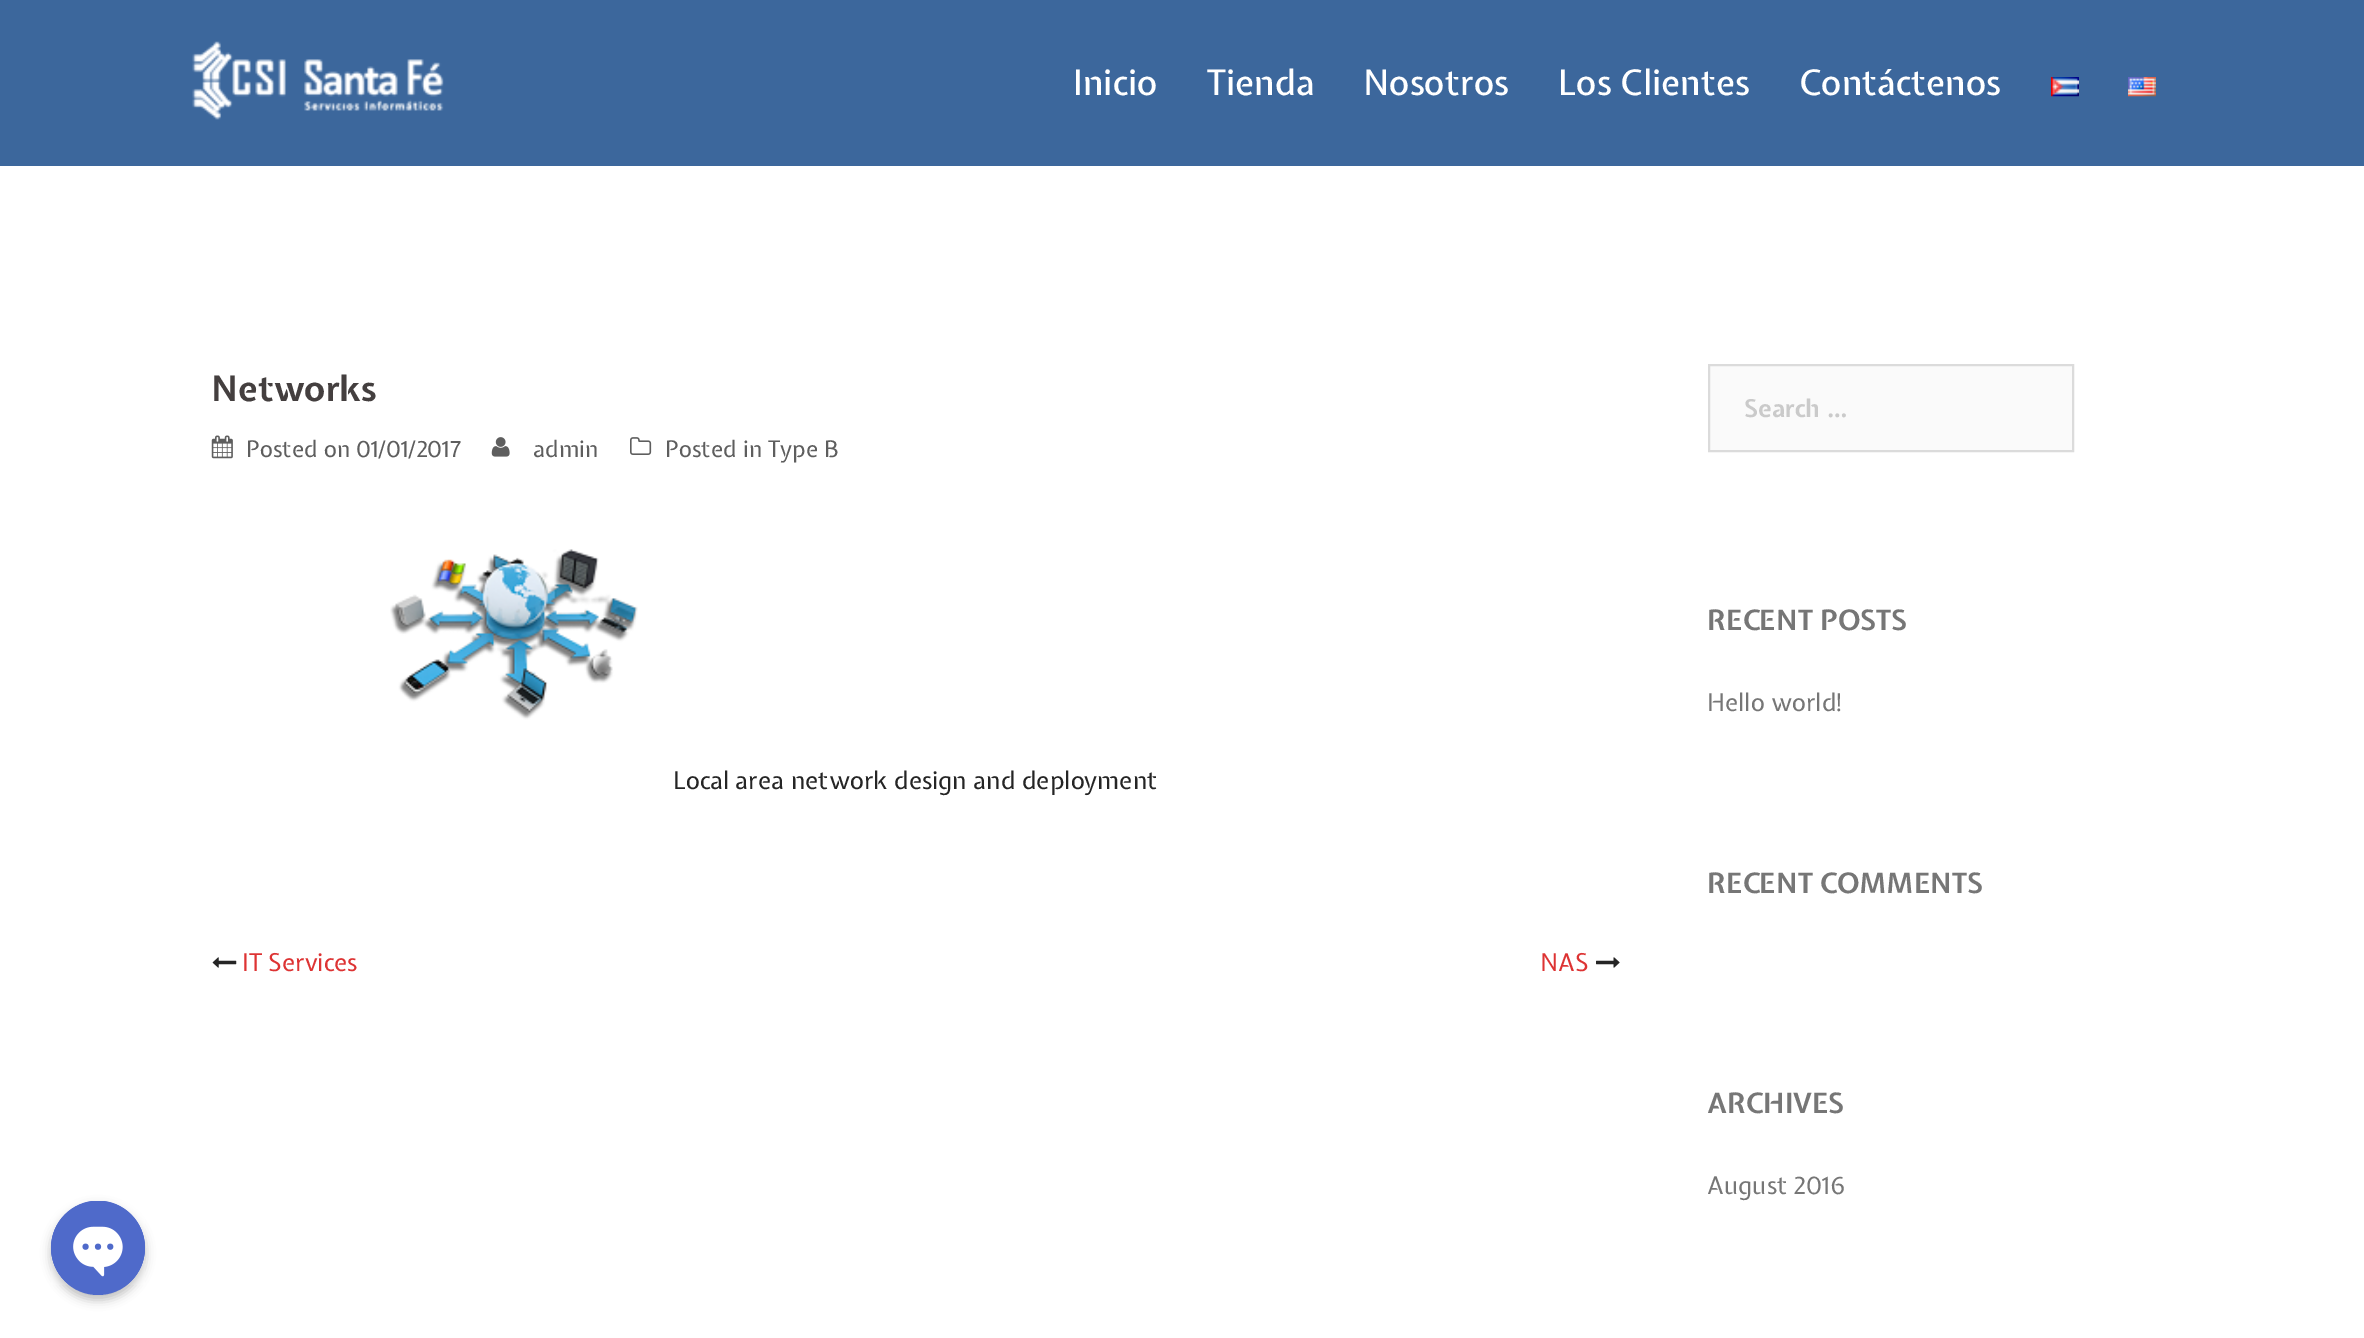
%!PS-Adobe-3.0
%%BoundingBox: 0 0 2364 1338
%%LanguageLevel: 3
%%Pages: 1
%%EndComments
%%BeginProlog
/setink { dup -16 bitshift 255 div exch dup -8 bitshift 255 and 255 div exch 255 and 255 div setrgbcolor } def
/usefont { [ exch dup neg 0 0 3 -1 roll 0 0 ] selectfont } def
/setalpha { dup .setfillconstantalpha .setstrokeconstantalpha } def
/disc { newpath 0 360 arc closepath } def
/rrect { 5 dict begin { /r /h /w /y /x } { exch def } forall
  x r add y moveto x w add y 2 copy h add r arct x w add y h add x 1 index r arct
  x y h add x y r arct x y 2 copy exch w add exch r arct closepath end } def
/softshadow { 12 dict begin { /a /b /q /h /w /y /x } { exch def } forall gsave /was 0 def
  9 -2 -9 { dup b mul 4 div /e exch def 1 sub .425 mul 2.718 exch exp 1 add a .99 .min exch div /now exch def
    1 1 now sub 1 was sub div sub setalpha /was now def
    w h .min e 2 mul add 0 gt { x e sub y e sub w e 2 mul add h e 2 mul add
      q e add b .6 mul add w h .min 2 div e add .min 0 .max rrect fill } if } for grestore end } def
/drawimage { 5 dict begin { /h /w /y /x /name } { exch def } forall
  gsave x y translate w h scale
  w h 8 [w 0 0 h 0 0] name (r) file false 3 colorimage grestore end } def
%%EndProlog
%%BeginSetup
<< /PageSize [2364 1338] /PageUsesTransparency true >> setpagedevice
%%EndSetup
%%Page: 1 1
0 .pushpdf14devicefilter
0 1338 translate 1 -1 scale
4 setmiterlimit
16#FFFFFF setink
0 0 2364 1338 rectfill
16#3C679C setink
0 0 2364 166 rectfill
(img1.raw) 192 41 252 79 drawimage
/ExpletusSans-Medium 35 usefont
16#FFFFFF setink
[
    [(Inicio) 1073 95]
    [(Tienda) 1207 95]
    [(Nosotros) 1363 95]
    [(Los Clientes) 1558 95]
    [(Contáctenos) 1799 95]
] { aload pop moveto show } forall
(img2.raw) 2051 77 28 20 drawimage
(img3.raw) 2128 77 28 20 drawimage
/ExpletusSans-Bold 35 usefont
16#443F3F setink
211 401 moveto (Networks) show
(img4.raw) 211 435 22 24 drawimage
/ExpletusSans-Regular 22.75 usefont
16#5E5E5E setink
246 457 moveto (Posted on 01/01/2017) show
(img5.raw) 491 437 19 20 drawimage
533 457 moveto (admin) show
(img6.raw) 630 437 22 18 drawimage
665 457 moveto (Posted in Type B) show
(img7.raw) 390 549 248 171 drawimage
/ExpletusSans-Regular 24.5 usefont
16#252525 setink
673 789 moveto (Local area network design and deployment) show
(img8.raw) 212 957 25 11 drawimage
16#DD3333 setink
242 971 moveto (IT Services) show
1540 971 moveto (NAS) show
(img9.raw) 1596 957 24 11 drawimage
16#FAFAFA setink
1709 365 moveto 2073 365 lineto 2073 451 lineto 1709 451 lineto closepath gsave fill grestore
16#DBDBDB setink
2 setlinewidth
stroke
/ExpletusSans-Bold 24.5 usefont
16#CACACA setink
1744 417 moveto (Search …) show
/ExpletusSans-Bold 28 usefont
16#767676 setink
1707 630 moveto (RECENT POSTS) show
/ExpletusSans-Regular 24.5 usefont
1707 711 moveto (Hello world!) show
/ExpletusSans-Bold 28 usefont
1707 893 moveto (RECENT COMMENTS) show
1707 1113 moveto (ARCHIVES) show
/ExpletusSans-Regular 24.5 usefont
1707 1194 moveto (August 2016) show
16#000000 setink
51 1206 94 94 47 5 0.25 softshadow
16#4F6ACA setink
98 1248 47 disc fill
(img10.raw) 51 1201 94 84 drawimage
.poppdf14devicefilter showpage
%%EOF
